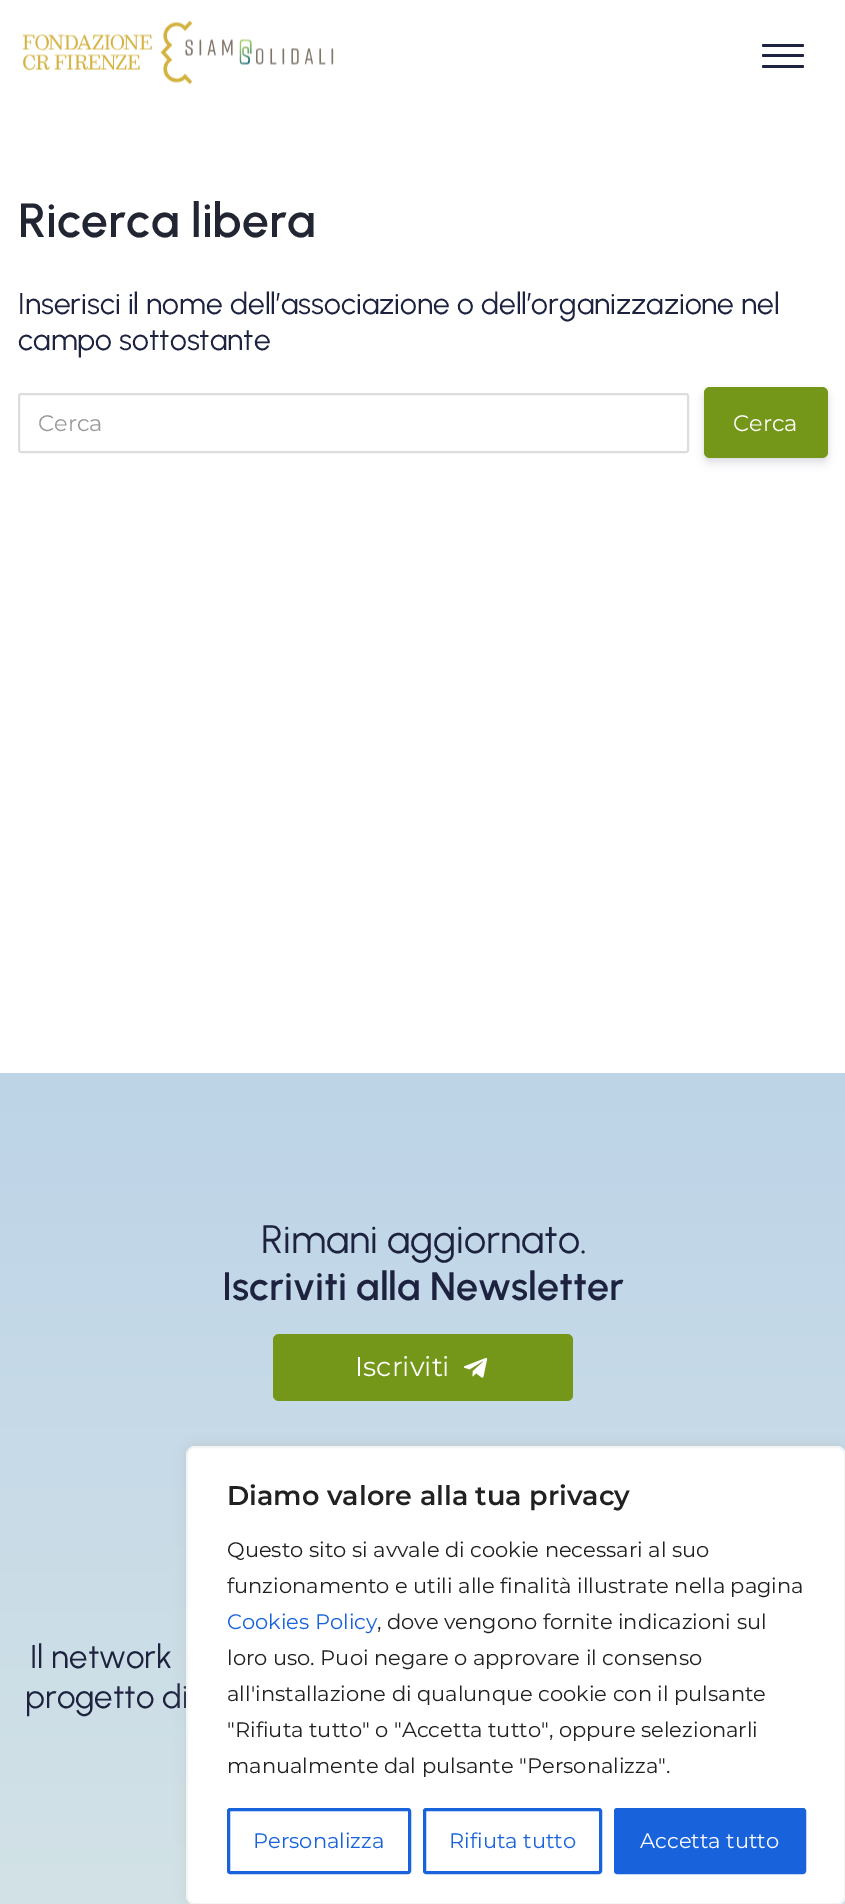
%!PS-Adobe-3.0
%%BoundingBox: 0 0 845 1904
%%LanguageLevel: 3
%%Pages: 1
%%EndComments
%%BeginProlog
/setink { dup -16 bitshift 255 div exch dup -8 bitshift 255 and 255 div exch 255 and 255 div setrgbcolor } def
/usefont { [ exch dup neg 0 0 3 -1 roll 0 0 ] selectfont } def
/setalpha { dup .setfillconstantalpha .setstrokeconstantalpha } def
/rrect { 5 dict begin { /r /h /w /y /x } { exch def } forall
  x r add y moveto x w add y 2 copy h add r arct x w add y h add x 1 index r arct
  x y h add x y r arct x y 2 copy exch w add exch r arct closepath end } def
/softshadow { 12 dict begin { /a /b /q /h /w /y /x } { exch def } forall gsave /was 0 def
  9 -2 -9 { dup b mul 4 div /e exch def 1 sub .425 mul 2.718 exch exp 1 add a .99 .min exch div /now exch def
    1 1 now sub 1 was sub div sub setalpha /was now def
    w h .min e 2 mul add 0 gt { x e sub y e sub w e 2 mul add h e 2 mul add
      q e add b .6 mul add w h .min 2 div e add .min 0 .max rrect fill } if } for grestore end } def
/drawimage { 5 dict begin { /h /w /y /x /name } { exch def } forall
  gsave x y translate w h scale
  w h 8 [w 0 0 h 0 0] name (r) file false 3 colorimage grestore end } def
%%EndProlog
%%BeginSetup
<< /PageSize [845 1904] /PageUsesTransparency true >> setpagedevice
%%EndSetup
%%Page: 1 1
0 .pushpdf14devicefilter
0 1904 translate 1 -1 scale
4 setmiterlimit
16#FFFFFF setink
0 0 845 1904 rectfill
(img1.raw) 22 20 312 65 drawimage
16#1D223F setink
762 44 42 3 1.5 rrect fill
762 54 42 3 1.5 rrect fill
762 65 42 3 1.5 rrect fill
/Urbanist-SemiBold 48 usefont
16#222632 setink
18 237 moveto (Ricerca libera) show
/Urbanist-Regular 30 usefont
16#1D223F setink
18 314 moveto (Inserisci il nome dell’associazione o dell’organizzazione nel) show
18 350 moveto (campo sottostante) show
16#DDDDDD setink
2 setlinewidth
19 394 669 58 2 rrect stroke
/Montserrat-Regular 22.5 usefont
16#999999 setink
38 431 moveto (Cerca) show
16#000000 setink
704 389 124 70 6 2 0.08 softshadow
16#32325D setink
704 393 124 71 6 4.5 0.11 softshadow
16#749719 setink
704 387 124 71 6 rrect fill
16#FFFFFF setink
733 431 moveto (Cerca) show
gsave 0 1073 moveto 845 1073 lineto 845 1904 lineto 0 1904 lineto closepath clip newpath
<< /ShadingType 2 /ColorSpace /DeviceRGB /Coords [423 1073 423 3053] /Extend [true true] /Function << /FunctionType 2 /Domain [0 1] /C0 [0.741 0.831 0.91] /C1 [0.941 0.961 0.894] /N 1 >> >> shfill grestore
/Urbanist-Regular 39.5 usefont
16#1D223F setink
261 1253 moveto (Rimani aggiornato.) show
/Urbanist-SemiBold 39.5 usefont
222 1300 moveto (Iscriviti alla Newsletter) show
16#749719 setink
273 1334 300 67 6 rrect fill
/Montserrat-Regular 27 usefont
16#FFFFFF setink
355 1376 moveto (Iscriviti) show
(img2.raw) 464 1357 24 21 drawimage
/Urbanist-Regular 33 usefont
16#1D223F setink
30 1668 moveto (Il network) show
25 1708 moveto (progetto di) show
16#ACABAB setink
186 1445 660 459 9 7.5 0.3 softshadow
16#FFFFFF setink
187 1447 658 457 8 rrect gsave fill grestore
16#F4F4F4 setink
stroke
/Montserrat-SemiBold 27 usefont
16#212121 setink
227 1505 moveto (Diamo valore alla tua privacy) show
/Montserrat-Regular 21 usefont
227 1557 moveto (Questo sito si avvale di cookie necessari al suo) show
227 1593 moveto (funzionamento e utili alle finalità illustrate nella pagina) show
16#1863DC setink
227 1629 moveto (Cookies Policy) show
16#212121 setink
[
    [(, dove vengono fornite indicazioni sul) 377 1629]
    [(loro uso. Puoi negare o approvare il consenso) 227 1665]
    [(all'installazione di qualunque cookie con il pulsante) 227 1701]
    [("Rifiuta tutto" o "Accetta tutto", oppure selezionarli) 227 1737]
    [(manualmente dal pulsante "Personalizza".) 227 1773]
] { aload pop moveto show } forall
16#1863DC setink
3 setlinewidth
228.5 1809.5 181 63 1.5 rrect stroke
253 1848 moveto (Personalizza) show
424.5 1809.5 176 63 1.5 rrect stroke
449 1848 moveto (Rifiuta tutto) show
615.5 1809.5 189 63 1.5 rrect gsave fill grestore
stroke
16#FFFFFF setink
640 1848 moveto (Accetta tutto) show
.poppdf14devicefilter showpage
%%EOF
